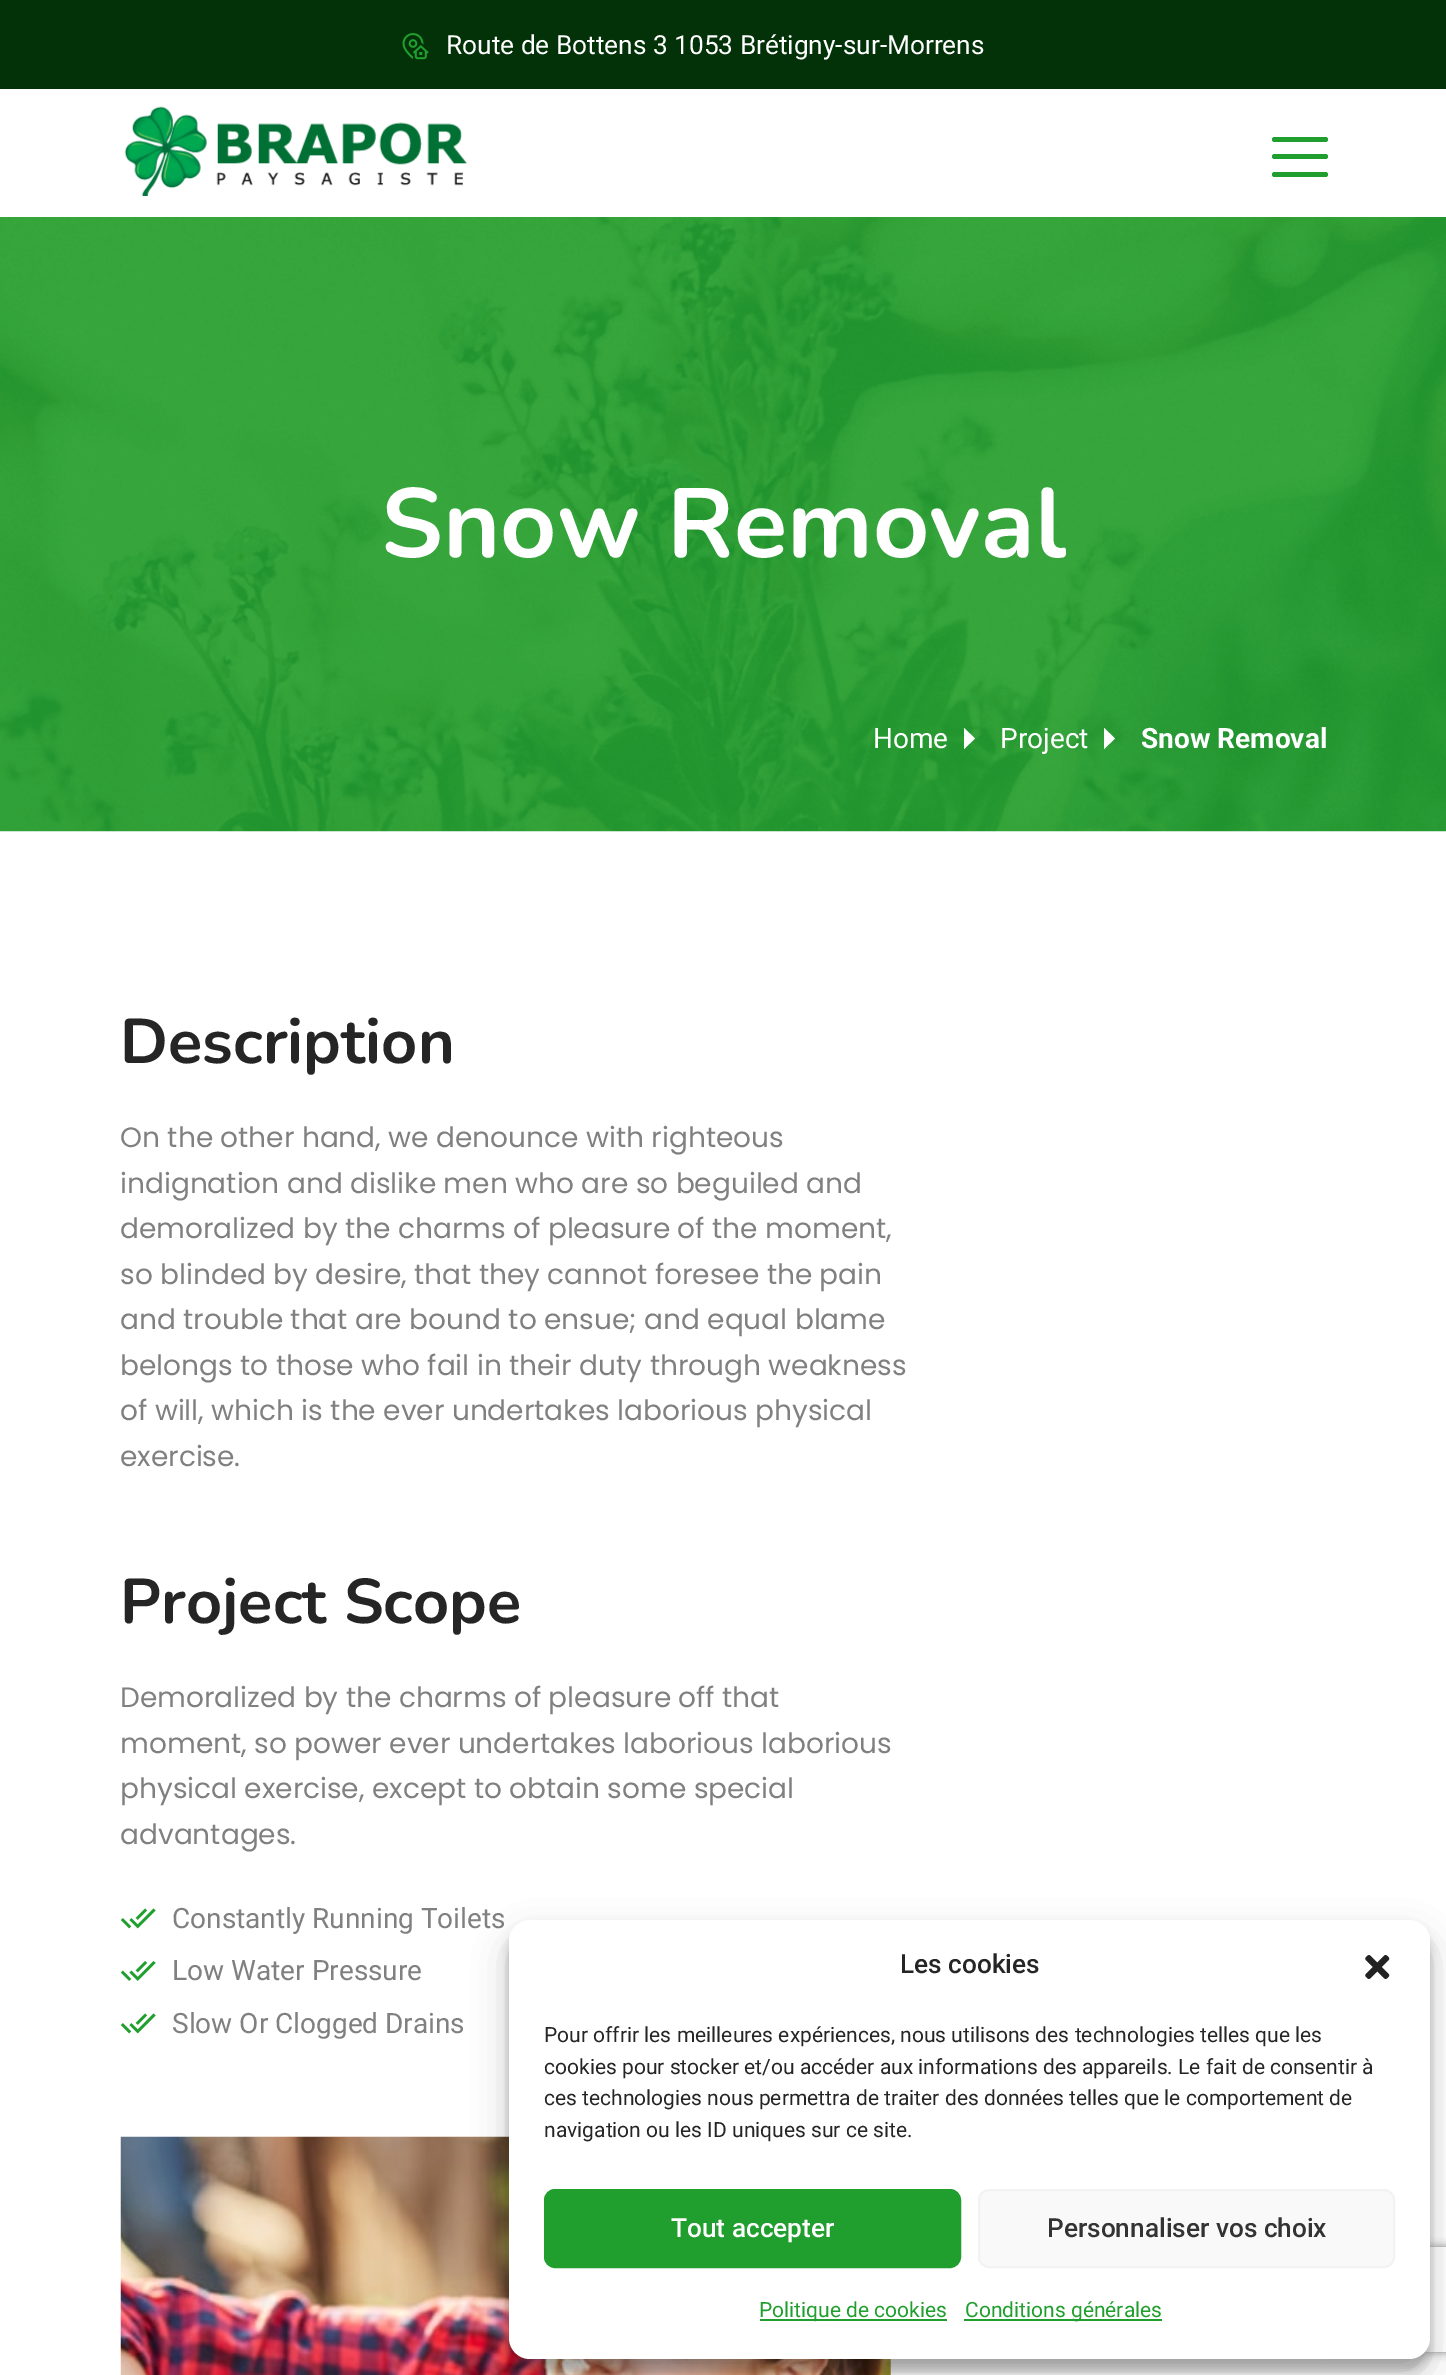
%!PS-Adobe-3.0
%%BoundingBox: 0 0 1446 2375
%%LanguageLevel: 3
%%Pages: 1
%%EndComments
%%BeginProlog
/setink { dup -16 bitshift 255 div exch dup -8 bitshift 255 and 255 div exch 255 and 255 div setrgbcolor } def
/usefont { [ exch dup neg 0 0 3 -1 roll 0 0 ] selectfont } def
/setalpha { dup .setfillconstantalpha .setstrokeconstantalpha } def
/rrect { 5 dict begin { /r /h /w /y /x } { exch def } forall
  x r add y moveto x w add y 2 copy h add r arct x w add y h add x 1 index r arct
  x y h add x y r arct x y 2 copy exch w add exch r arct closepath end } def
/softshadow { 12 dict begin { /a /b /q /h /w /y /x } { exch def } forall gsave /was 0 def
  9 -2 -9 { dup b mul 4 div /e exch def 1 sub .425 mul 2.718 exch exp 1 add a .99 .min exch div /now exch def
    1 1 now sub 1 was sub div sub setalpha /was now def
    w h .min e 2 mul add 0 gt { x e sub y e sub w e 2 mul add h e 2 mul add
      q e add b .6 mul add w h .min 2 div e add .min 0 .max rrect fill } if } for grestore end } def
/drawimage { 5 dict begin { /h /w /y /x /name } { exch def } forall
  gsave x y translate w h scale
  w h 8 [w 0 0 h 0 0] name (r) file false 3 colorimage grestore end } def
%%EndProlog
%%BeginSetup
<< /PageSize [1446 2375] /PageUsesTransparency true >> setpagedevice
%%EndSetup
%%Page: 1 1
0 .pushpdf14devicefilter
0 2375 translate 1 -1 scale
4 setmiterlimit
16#FFFFFF setink
0 0 1446 2375 rectfill
16#033209 setink
0 0 1446 89 rectfill
(img1.raw) 402 33 27 27 drawimage
/Roboto-Regular 26.25 usefont
16#FFFFFF setink
446 54 moveto (Route de Bottens 3 1053 Brétigny-sur-Morrens) show
(img2.raw) 124 106 343 90 drawimage
16#209E2E setink
1272 137 56 5 2.5 rrect fill
1272 154 56 5 2.5 rrect fill
1272 172 56 5 2.5 rrect fill
(img3.raw) 0 217 1446 615 drawimage
/Nunito-Bold 98 usefont
16#FFFFFF setink
381 557 moveto (Snow Removal) show
/Roboto-Regular 28 usefont
873 748 moveto (Home) show
964 749 moveto 964 728 lineto 975 738.5 lineto closepath fill
1000 748 moveto (Project) show
1104 749 moveto 1104 728 lineto 1115 738.5 lineto closepath fill
/Roboto-Bold 28 usefont
1141 748 moveto (Snow Removal) show
/Nunito-Bold 63 usefont
16#252525 setink
120 1063 moveto (Description) show
/Poppins-Regular 28 usefont
16#808080 setink
[
    [(On the other hand, we denounce with righteous) 120 1147]
    [(indignation and dislike men who are so beguiled and) 120 1193]
    [(demoralized by the charms of pleasure of the moment,) 120 1238]
    [(so blinded by desire, that they cannot foresee the pain) 120 1284]
    [(and trouble that are bound to ensue; and equal blame) 120 1329]
    [(belongs to those who fail in their duty through weakness) 120 1375]
    [(of will, which is the ever undertakes laborious physical) 120 1420]
    [(exercise.) 120 1466]
] { aload pop moveto show } forall
/Nunito-Bold 63 usefont
16#252525 setink
120 1623 moveto (Project Scope) show
/Poppins-Regular 28 usefont
16#808080 setink
[
    [(Demoralized by the charms of pleasure off that) 120 1707]
    [(moment, so power ever undertakes laborious laborious) 120 1753]
    [(physical exercise, except to obtain some special) 120 1798]
    [(advantages.) 120 1844]
] { aload pop moveto show } forall
(img4.raw) 120 1908 36 21 drawimage
/Roboto-Regular 28 usefont
172 1928 moveto (Constantly Running Toilets) show
(img5.raw) 120 1961 36 20 drawimage
172 1980 moveto (Low Water Pressure) show
(img4.raw) 120 2013 36 21 drawimage
172 2033 moveto (Slow Or Clogged Drains) show
(img6.raw) 120 2136 771 239 drawimage
16#000000 setink
509 1930 921 440 21 5 0.23 softshadow
509 1937 921 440 21 17.5 0.19 softshadow
gsave
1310 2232 moveto 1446 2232 lineto 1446 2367 lineto 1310 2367 lineto closepath 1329 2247 moveto 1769 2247 lineto 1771 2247 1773 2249 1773 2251 curveto 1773 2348 lineto 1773 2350 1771 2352 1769 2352 curveto 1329 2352 lineto 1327 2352 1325 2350 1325 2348 curveto 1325 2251 lineto 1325 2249 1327 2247 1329 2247 curveto closepath eoclip newpath
16#808080 setink
1325 2247 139 105 4 4.5 1 softshadow
grestore
16#FFFFFF setink
509 1920 921 439 21 rrect fill
/Roboto-Medium 26.25 usefont
16#252525 setink
900 1973 moveto (Les cookies) show
(img7.raw) 1365 1955 25 24 drawimage
/Roboto-Regular 21 usefont
[
    [(Pour offrir les meilleures expériences, nous utilisons des technologies telles que les) 544 2042]
    [(cookies pour stocker et/ou accéder aux informations des appareils. Le fait de consentir à) 544 2074]
    [(ces technologies nous permettra de traiter des données telles que le comportement de) 544 2105]
    [(navigation ou les ID uniques sur ce site.) 544 2137]
] { aload pop moveto show } forall
16#209E2E setink
545 2190 415 77 10 rrect gsave fill grestore
2 setlinewidth
stroke
/Roboto-Medium 26.25 usefont
16#FFFFFF setink
671 2237 moveto (Tout accepter) show
16#F9F9F9 setink
979 2190 415 77 10 rrect gsave fill grestore
16#F2F2F2 setink
stroke
16#333333 setink
1047 2237 moveto (Personnaliser vos choix) show
16#209E2E setink
760 2319 187 2 rectfill
/Roboto-Regular 21 usefont
759 2317 moveto (Politique de cookies) show
964 2319 198 2 rectfill
965 2317 moveto (Conditions générales) show
.poppdf14devicefilter showpage
%%EOF
